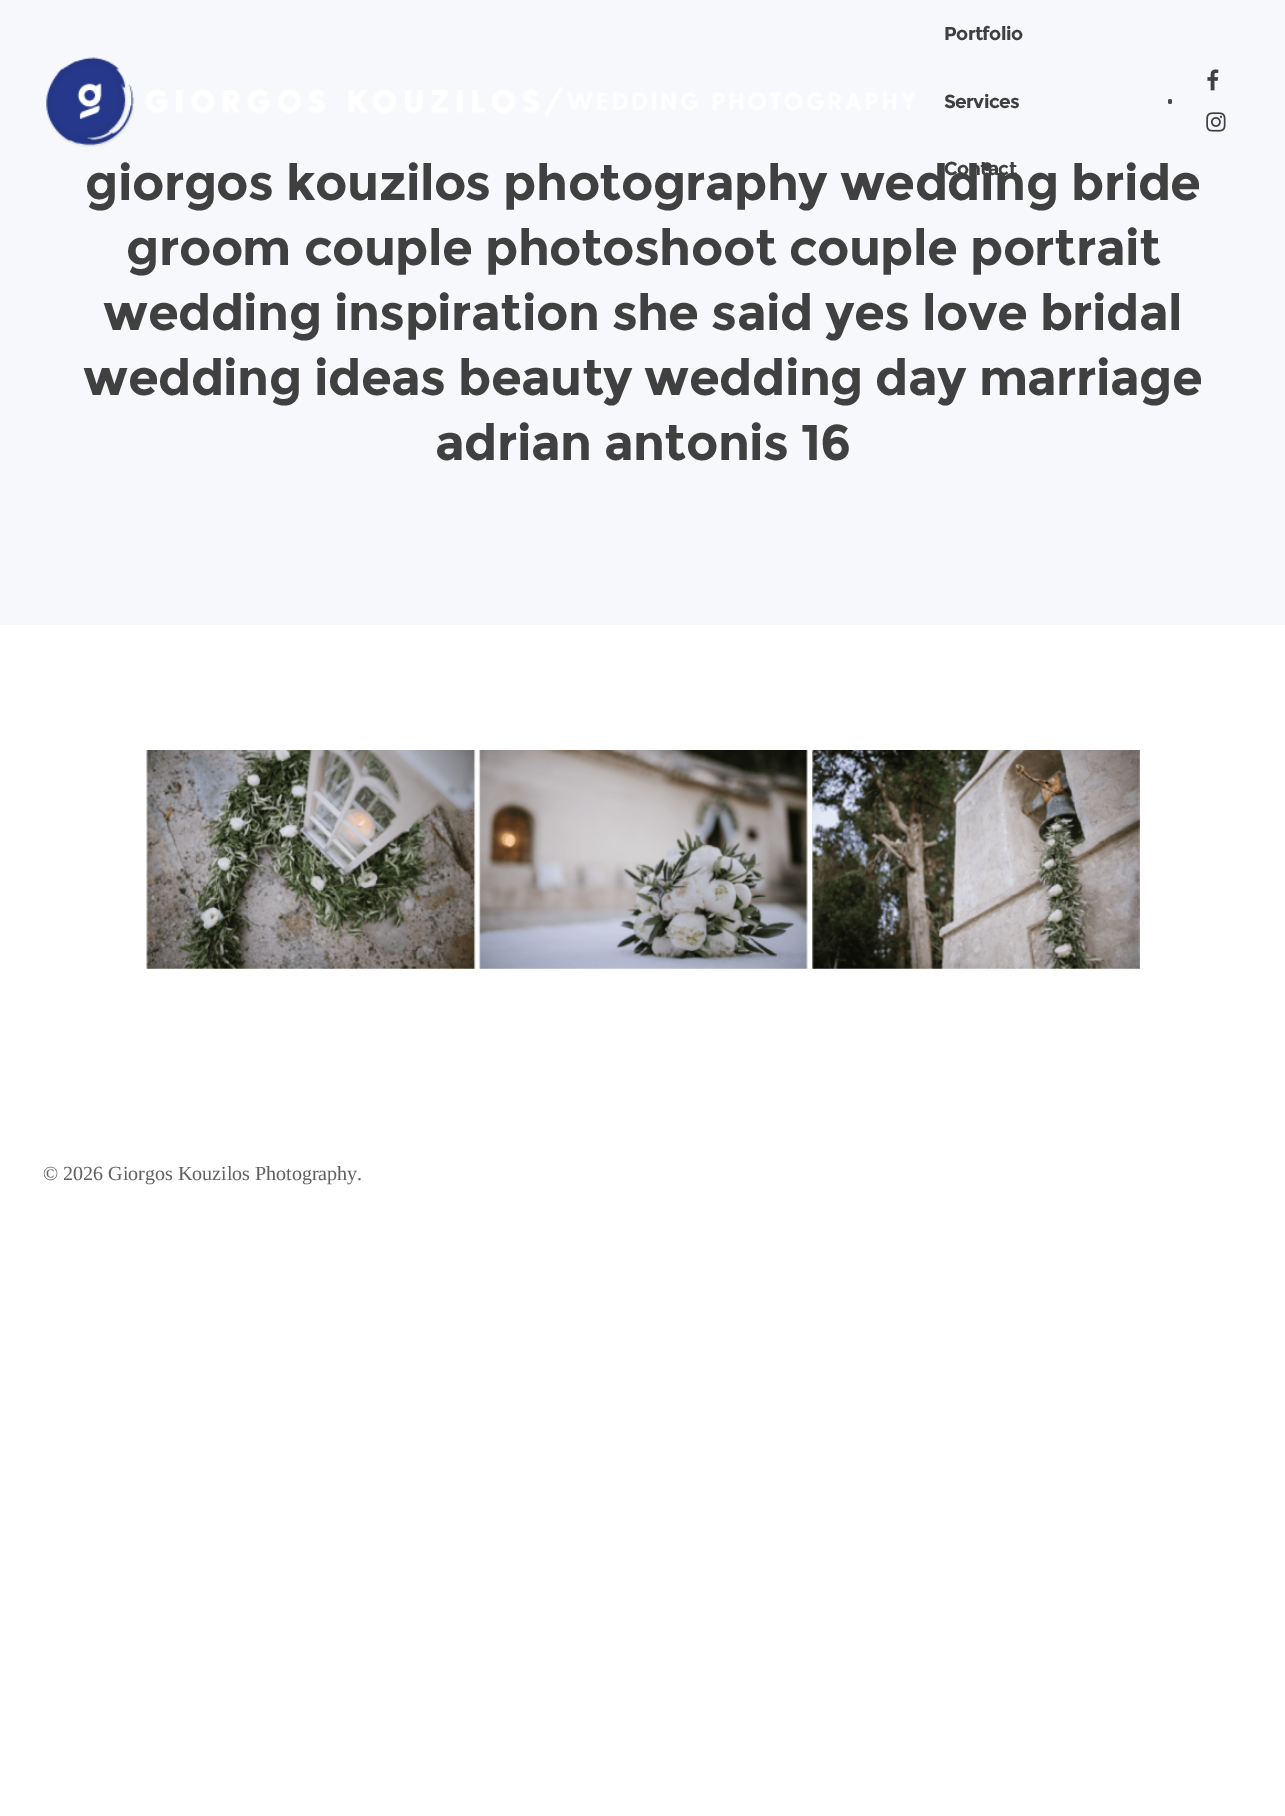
%!PS-Adobe-3.0
%%BoundingBox: 0 0 1285 1816
%%LanguageLevel: 3
%%Pages: 1
%%EndComments
%%BeginProlog
/setink { dup -16 bitshift 255 div exch dup -8 bitshift 255 and 255 div exch 255 and 255 div setrgbcolor } def
/usefont { [ exch dup neg 0 0 3 -1 roll 0 0 ] selectfont } def
/rrect { 5 dict begin { /r /h /w /y /x } { exch def } forall
  x r add y moveto x w add y 2 copy h add r arct x w add y h add x 1 index r arct
  x y h add x y r arct x y 2 copy exch w add exch r arct closepath end } def
/drawimage { 5 dict begin { /h /w /y /x /name } { exch def } forall
  gsave x y translate w h scale
  w h 8 [w 0 0 h 0 0] name (r) file false 3 colorimage grestore end } def
%%EndProlog
%%BeginSetup
<< /PageSize [1285 1816] >> setpagedevice
%%EndSetup
%%Page: 1 1
0 1816 translate 1 -1 scale
4 setmiterlimit
16#FFFFFF setink
0 0 1285 1816 rectfill
16#F7F8FC setink
0 0 1285 625 rectfill
(img1.raw) 46 57 869 90 drawimage
/Montserrat-Bold 18.75 usefont
16#404040 setink
944 40 moveto -0.6 0 (Portfolio) ashow
944 108 moveto -0.6 0 (Services) ashow
/Montserrat-Bold 50 usefont
85 200 moveto -0.6 0 (giorgos kouzilos photography wedding bride) ashow
/Montserrat-Bold 18.75 usefont
944 175 moveto -0.6 0 (Contact) ashow
16#4A4A4C setink
1168 99 4 5 2 rrect fill
(img2.raw) 1207 69 12 22 drawimage
(img3.raw) 1206 112 20 20 drawimage
/Montserrat-Bold 50 usefont
16#404040 setink
126 265 moveto -0.6 0 (groom couple photoshoot couple portrait) ashow
103 330 moveto -0.6 0 (wedding inspiration she said yes love bridal) ashow
83 395 moveto -0.6 0 (wedding ideas beauty wedding day marriage) ashow
435 460 moveto -0.6 0 (adrian antonis 16) ashow
(img4.raw) 146 750 994 219 drawimage
/LiberationSerif-Regular 20 usefont
16#606060 setink
43 1180 moveto (© 2026 Giorgos Kouzilos Photography.) show
showpage
%%EOF
